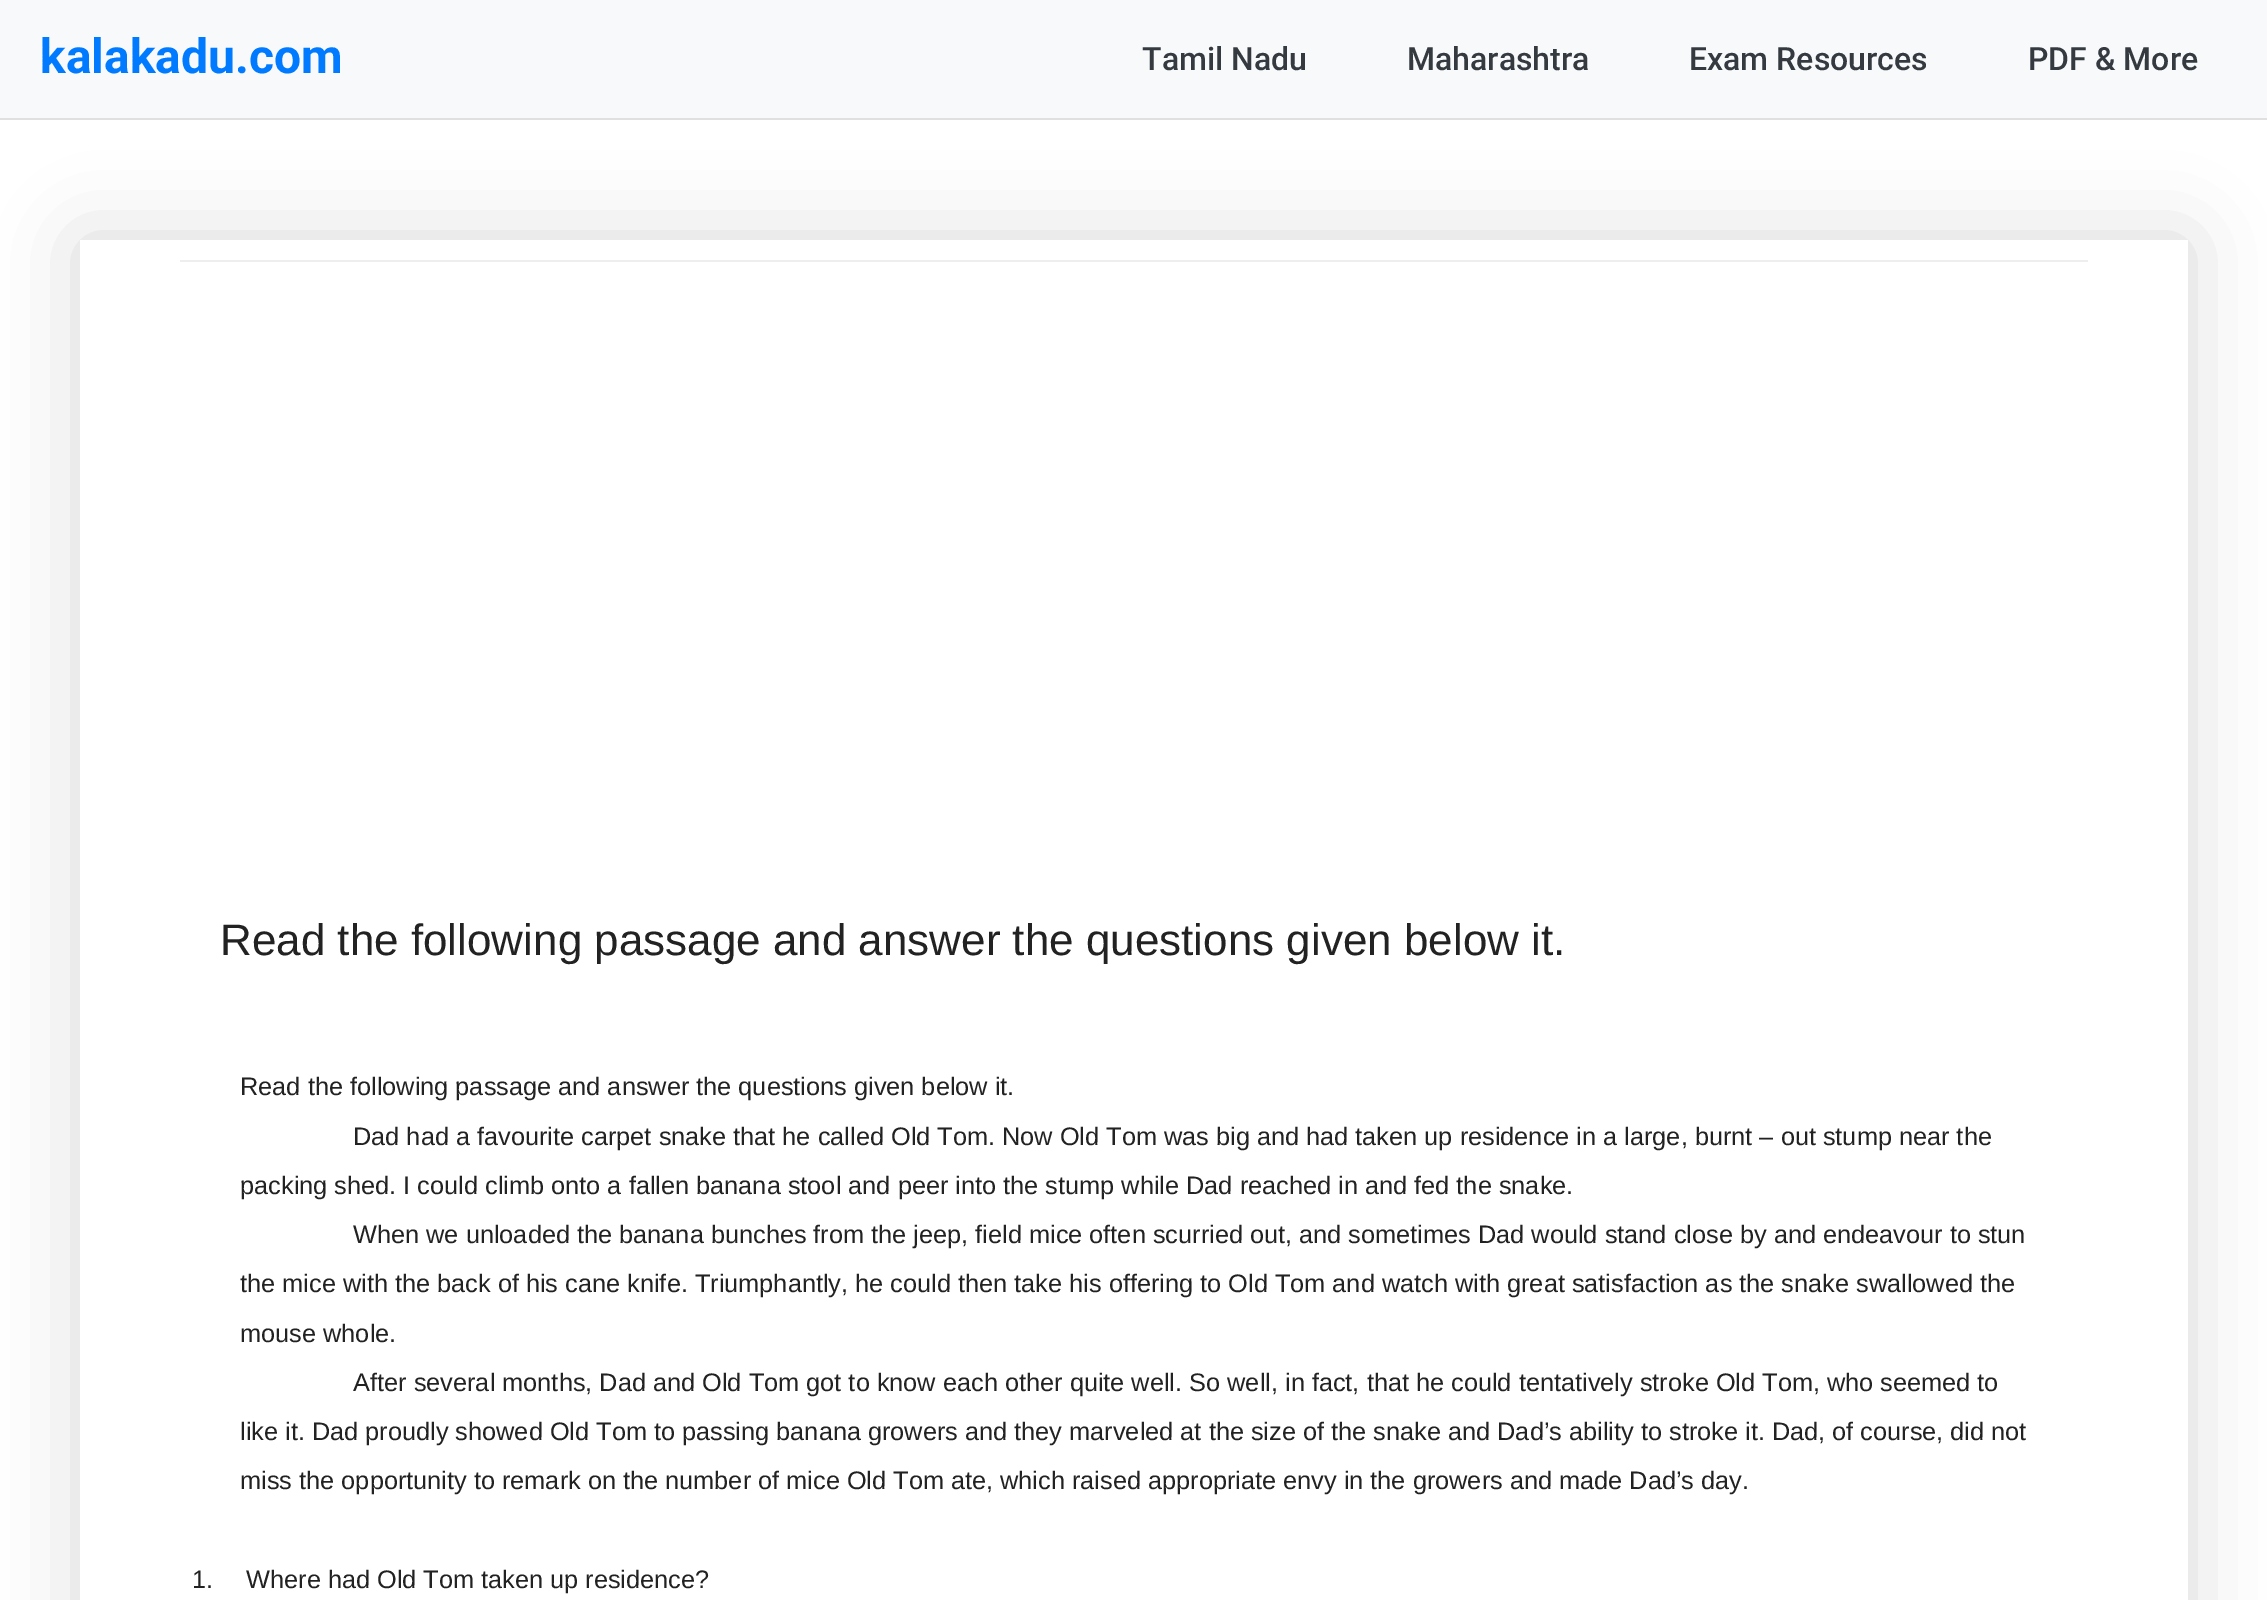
%!PS-Adobe-3.0
%%BoundingBox: 0 0 2267 1600
%%LanguageLevel: 3
%%Pages: 1
%%EndComments
%%BeginProlog
/setink { dup -16 bitshift 255 div exch dup -8 bitshift 255 and 255 div exch 255 and 255 div setrgbcolor } def
/usefont { [ exch dup neg 0 0 3 -1 roll 0 0 ] selectfont } def
/setalpha { dup .setfillconstantalpha .setstrokeconstantalpha } def
/rrect { 5 dict begin { /r /h /w /y /x } { exch def } forall
  x r add y moveto x w add y 2 copy h add r arct x w add y h add x 1 index r arct
  x y h add x y r arct x y 2 copy exch w add exch r arct closepath end } def
/softshadow { 12 dict begin { /a /b /q /h /w /y /x } { exch def } forall gsave /was 0 def
  9 -2 -9 { dup b mul 4 div /e exch def 1 sub .425 mul 2.718 exch exp 1 add a .99 .min exch div /now exch def
    1 1 now sub 1 was sub div sub setalpha /was now def
    w h .min e 2 mul add 0 gt { x e sub y e sub w e 2 mul add h e 2 mul add
      q e add b .6 mul add w h .min 2 div e add .min 0 .max rrect fill } if } for grestore end } def
%%EndProlog
%%BeginSetup
<< /PageSize [2267 1600] /PageUsesTransparency true >> setpagedevice
%%EndSetup
%%Page: 1 1
0 .pushpdf14devicefilter
0 1600 translate 1 -1 scale
4 setmiterlimit
16#FFFFFF setink
0 0 2267 1600 rectfill
16#F8F9FA setink
0 0 2267 118 rectfill
gsave
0 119 moveto 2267 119 lineto 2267 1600 lineto 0 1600 lineto closepath 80 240 moveto 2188 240 lineto 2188 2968 lineto 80 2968 lineto closepath eoclip newpath
16#000000 setink
80 240 2108 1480 0 40 0.15 softshadow
grestore
16#E0E0E0 setink
0 118 2267 2 rectfill
/Roboto-Bold 48 usefont
16#007BFF setink
40 73 moveto (kalakadu.com) show
/Roboto-Medium 32 usefont
16#343A40 setink
[
    [(Tamil Nadu) 1142 70]
    [(Maharashtra) 1407 70]
    [(Exam Resources) 1689 70]
    [(PDF & More) 2028 70]
] { aload pop moveto show } forall
16#EEEEEE setink
180 260 1908 2 rectfill
/LiberationSans-Regular 44 usefont
16#222222 setink
220 955 moveto (Read the following passage and answer the questions given below it.) show
/LiberationSans-Regular 25.33 usefont
[
    [(Read the following passage and answer the questions given below it.) 240 1095]
    [(Dad had a favourite carpet snake that he called Old Tom. Now Old Tom was big and had taken up residence in a large, burnt – out stump near the) 353 1145]
    [(packing shed. I could climb onto a fallen banana stool and peer into the stump while Dad reached in and fed the snake.) 240 1194]
    [(When we unloaded the banana bunches from the jeep, field mice often scurried out, and sometimes Dad would stand close by and endeavour to stun) 353 1243]
    [(the mice with the back of his cane knife. Triumphantly, he could then take his offering to Old Tom and watch with great satisfaction as the snake swallowed the) 240 1292]
    [(mouse whole.) 240 1342]
    [(After several months, Dad and Old Tom got to know each other quite well. So well, in fact, that he could tentatively stroke Old Tom, who seemed to) 353 1391]
    [(like it. Dad proudly showed Old Tom to passing banana growers and they marveled at the size of the snake and Dad’s ability to stroke it. Dad, of course, did not) 240 1440]
    [(miss the opportunity to remark on the number of mice Old Tom ate, which raised appropriate envy in the growers and made Dad’s day.) 240 1489]
    [(1.) 192 1588]
    [(Where had Old Tom taken up residence?) 246 1588]
] { aload pop moveto show } forall
.poppdf14devicefilter showpage
%%EOF
